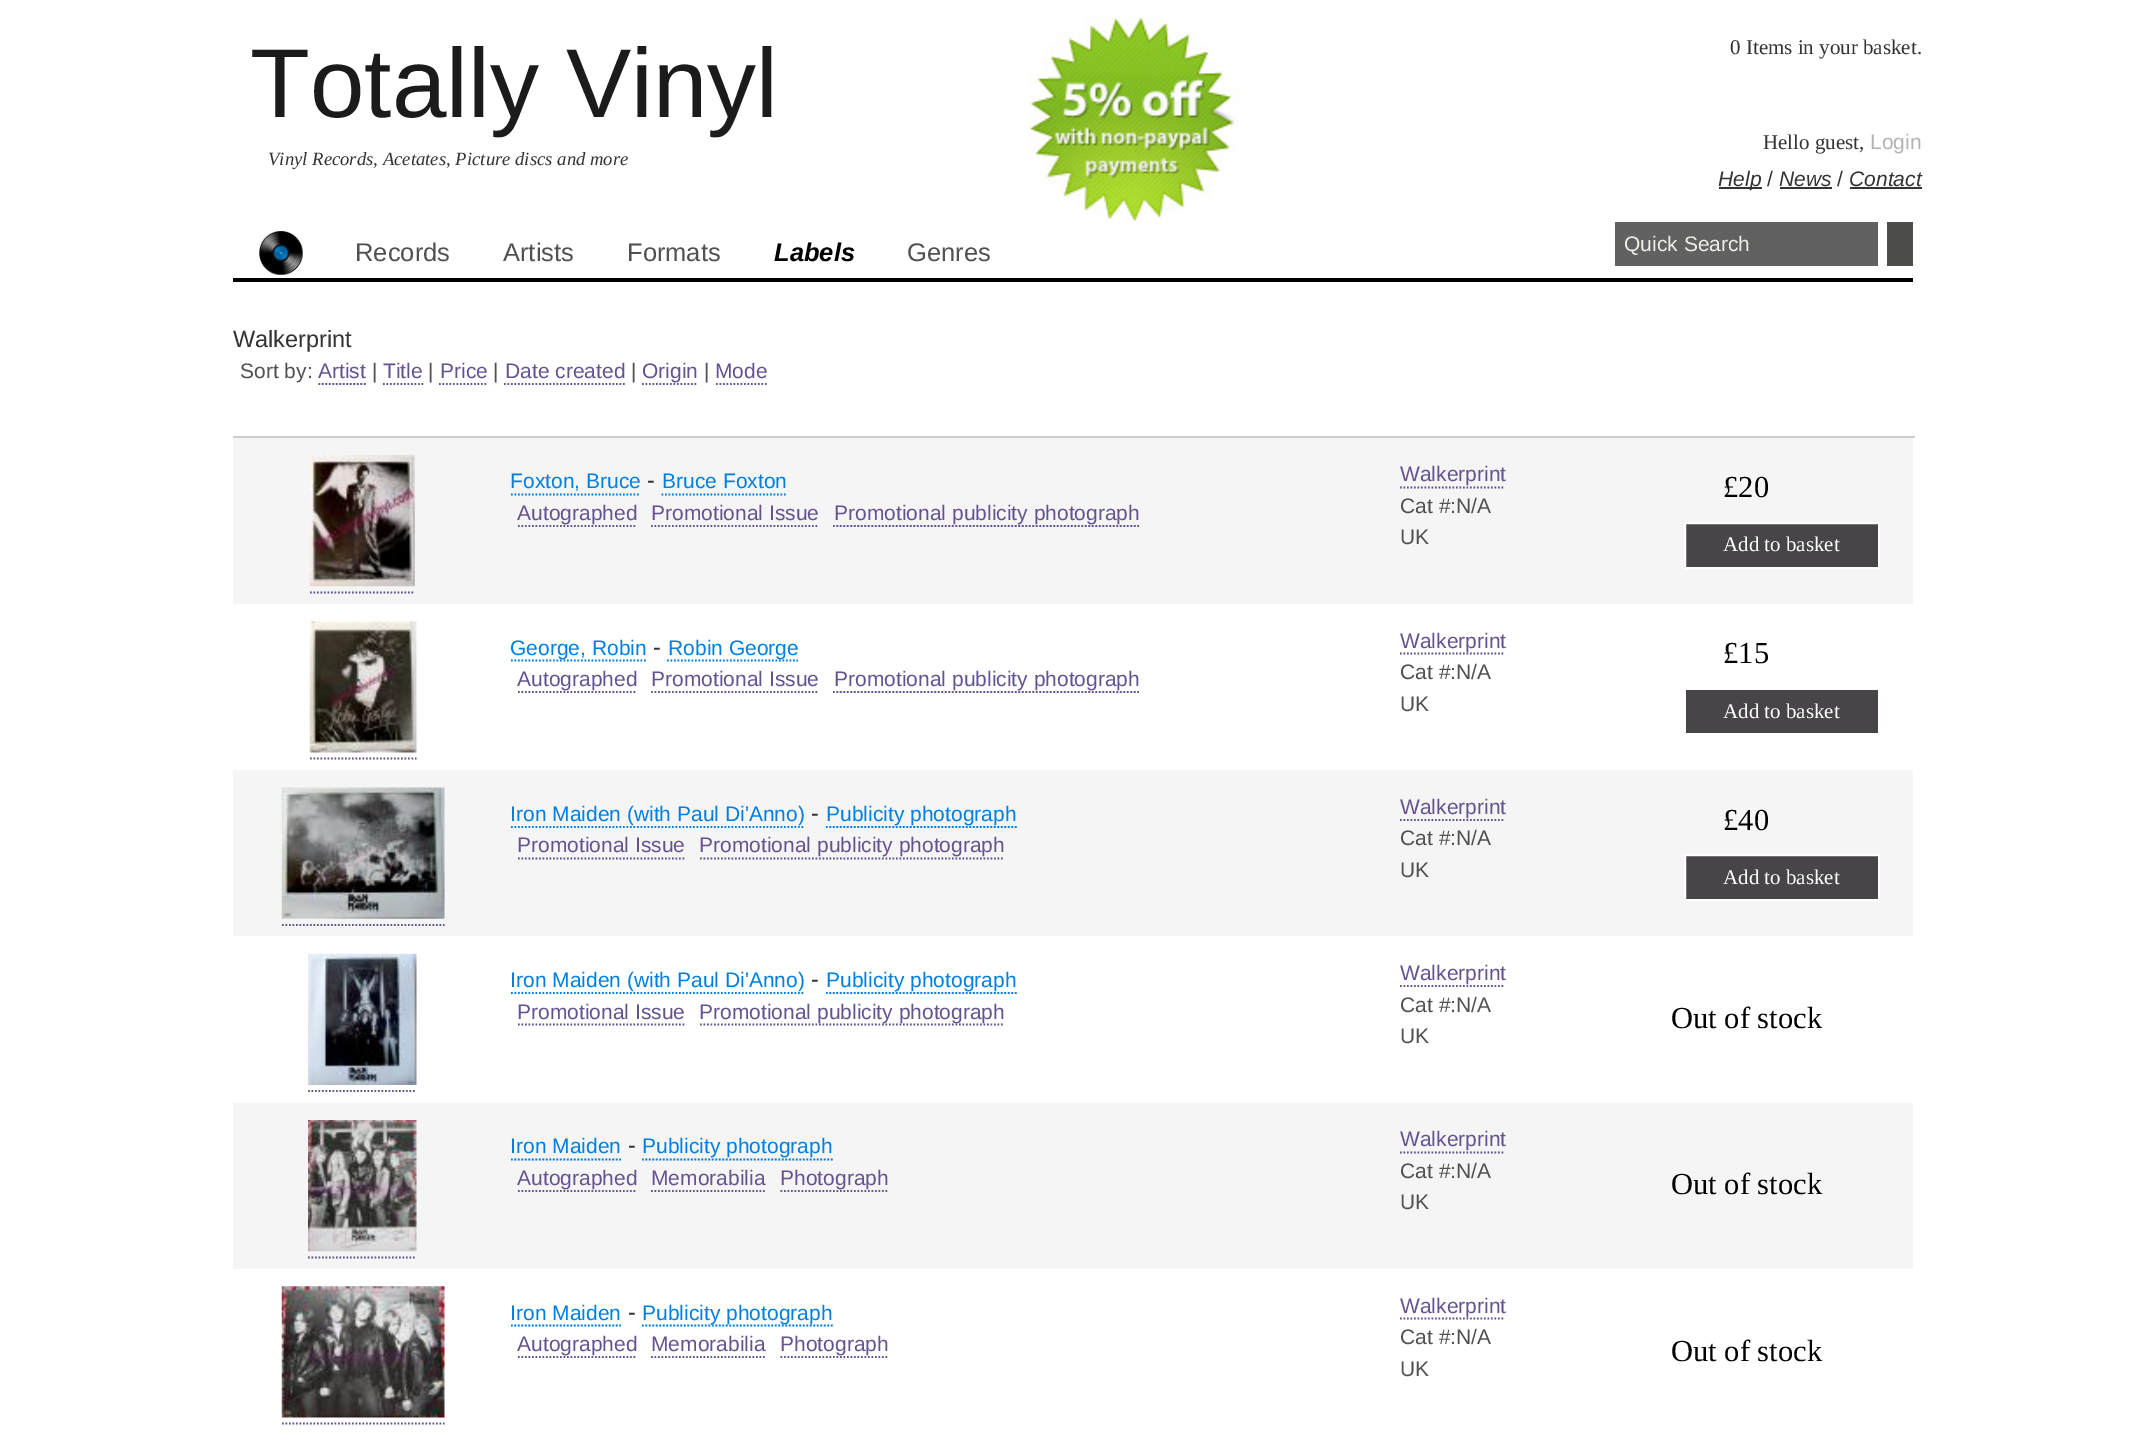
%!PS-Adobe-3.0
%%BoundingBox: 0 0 2145 1443
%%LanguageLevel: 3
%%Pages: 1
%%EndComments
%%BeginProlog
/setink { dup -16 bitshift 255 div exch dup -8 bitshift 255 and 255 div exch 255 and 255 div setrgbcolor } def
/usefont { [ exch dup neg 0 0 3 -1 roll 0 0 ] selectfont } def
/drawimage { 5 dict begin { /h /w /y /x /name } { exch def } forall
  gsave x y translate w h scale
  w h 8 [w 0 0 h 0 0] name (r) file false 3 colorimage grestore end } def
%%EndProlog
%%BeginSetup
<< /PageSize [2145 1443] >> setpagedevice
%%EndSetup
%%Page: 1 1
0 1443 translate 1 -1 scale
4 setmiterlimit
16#FFFFFF setink
0 0 2145 1443 rectfill
(img1.raw) 1029 17 210 205 drawimage
/LiberationSans-Regular 98 usefont
16#1B1B1B setink
250 117 moveto (Totally Vinyl) show
/LiberationSerif-Italic 18.7 usefont
16#333333 setink
268 165 moveto (Vinyl Records, Acetates, Picture discs and more) show
/LiberationSerif-Regular 21 usefont
1730 54 moveto (0 Items in your basket.) show
1763 149 moveto (Hello guest,) show
/LiberationSans-Regular 21 usefont
16#B3B3B3 setink
1870 149 moveto (Login) show
16#333333 setink
1719 187 43 2 rectfill
/LiberationSans-Italic 21 usefont
1718 186 moveto (Help) show
/LiberationSans-Regular 21 usefont
1767 186 moveto (/) show
/LiberationSans-Italic 21 usefont
1779 186 moveto (News) show
1780 187 52 2 rectfill
/LiberationSans-Regular 21 usefont
1837 186 moveto (/) show
/LiberationSans-Italic 21 usefont
1849 186 moveto (Contact) show
1850 187 72 2 rectfill
16#000000 setink
233 278 1680 4 rectfill
(img2.raw) 259 231 44 44 drawimage
/LiberationSans-Regular 25.5 usefont
16#515151 setink
[
    [(Records) 355 261]
    [(Artists) 503 261]
    [(Formats) 627 261]
] { aload pop moveto show } forall
/LiberationSans-BoldItalic 25.5 usefont
16#000000 setink
774 261 moveto (Labels) show
/LiberationSans-Regular 25.5 usefont
16#515151 setink
907 261 moveto (Genres) show
16#616161 setink
1615 222 263 44 rectfill
/LiberationSans-Regular 21 usefont
16#EEEEE8 setink
1624 251 moveto (Quick Search) show
16#4C4C4B setink
1887 222 26 44 rectfill
/LiberationSans-Regular 23.5 usefont
16#333333 setink
233 347 moveto (Walkerprint) show
/LiberationSans-Regular 21 usefont
16#515151 setink
240 378 moveto (Sort by:) show
16#655390 setink
318 378 moveto (Artist) show
1.8 setlinewidth
[1.75 1.75] 0 setdash
318.5 384 moveto 366 384 lineto stroke
16#515151 setink
372 378 moveto (|) show
16#655390 setink
383 378 moveto (Title) show
383 384 moveto 423.5 384 lineto stroke
16#515151 setink
428 378 moveto (|) show
16#655390 setink
440 378 moveto (Price) show
439 384 moveto 488 384 lineto stroke
16#515151 setink
493 378 moveto (|) show
16#655390 setink
505 378 moveto (Date created) show
504 384 moveto 625 384 lineto stroke
16#515151 setink
631 378 moveto (|) show
16#655390 setink
642 378 moveto (Origin) show
642 384 moveto 698 384 lineto stroke
16#515151 setink
704 378 moveto (|) show
16#655390 setink
715 378 moveto (Mode) show
716 384 moveto 768 384 lineto stroke
16#CCCCCC setink
233 436 1682 2 rectfill
16#F5F5F5 setink
233 438 1680 166 rectfill
(img3.raw) 309 455 106 132 drawimage
16#655390 setink
310 592.5 moveto 415 592.5 lineto stroke
16#007FE2 setink
510 488 moveto (Foxton, Bruce) show
511 494.5 moveto 640.5 494.5 lineto stroke
/LiberationSans-Regular 23.5 usefont
16#333333 setink
647 488 moveto (-) show
/LiberationSans-Regular 21 usefont
16#007FE2 setink
662 488 moveto (Bruce Foxton) show
661.5 494.5 moveto 786 494.5 lineto stroke
16#655390 setink
517 520 moveto (Autographed) show
518 526 moveto 637 526 lineto stroke
651 520 moveto (Promotional Issue) show
651 526 moveto 819 526 lineto stroke
834 520 moveto (Promotional publicity photograph) show
833 526 moveto 1139 526 lineto stroke
1400 481 moveto (Walkerprint) show
1400 487.5 moveto 1505 487.5 lineto stroke
16#515151 setink
1400 513 moveto (Cat #:N/A) show
1400 544 moveto (UK) show
/LiberationSerif-Regular 30.5 usefont
16#000000 setink
1723 497 moveto (£20) show
16#474547 setink
1685 523 moveto 1879 523 lineto 1879 568 lineto 1685 568 lineto closepath gsave fill grestore
16#FFFFFF setink
2 setlinewidth
[] 0 setdash
stroke
/LiberationSerif-Regular 21 usefont
1723 551 moveto (Add to basket) show
(img4.raw) 309 621 108 132 drawimage
16#655390 setink
1.8 setlinewidth
[1.75 1.75] 0 setdash
310 758.5 moveto 416.5 758.5 lineto stroke
16#007FE2 setink
511 660.5 moveto 647.5 660.5 lineto stroke
/LiberationSans-Regular 21 usefont
510 655 moveto (George, Robin) show
/LiberationSans-Regular 23.5 usefont
16#333333 setink
653 655 moveto (-) show
16#007FE2 setink
667 660.5 moveto 798 660.5 lineto stroke
/LiberationSans-Regular 21 usefont
668 655 moveto (Robin George) show
16#655390 setink
517 686 moveto (Autographed) show
518 692 moveto 637 692 lineto stroke
651 686 moveto (Promotional Issue) show
651 692 moveto 819 692 lineto stroke
834 686 moveto (Promotional publicity photograph) show
833 692 moveto 1139 692 lineto stroke
1400 653.5 moveto 1505 653.5 lineto stroke
1400 648 moveto (Walkerprint) show
16#515151 setink
1400 679 moveto (Cat #:N/A) show
1400 711 moveto (UK) show
/LiberationSerif-Regular 30.5 usefont
16#000000 setink
1723 663 moveto (£15) show
16#474547 setink
1686 690 192 43 rectfill
/LiberationSerif-Regular 21 usefont
16#FFFFFF setink
1723 718 moveto (Add to basket) show
16#F5F5F5 setink
233 770 1680 166 rectfill
(img5.raw) 281 787 164 132 drawimage
16#655390 setink
282 925 moveto 444.5 925 lineto stroke
/LiberationSans-Regular 21 usefont
16#007FE2 setink
510 821 moveto (Iron Maiden \(with Paul Di'Anno\)) show
511 827 moveto 805 827 lineto stroke
/LiberationSans-Regular 23.5 usefont
16#333333 setink
811 821 moveto (-) show
/LiberationSans-Regular 21 usefont
16#007FE2 setink
826 821 moveto (Publicity photograph) show
826 827 moveto 1017 827 lineto stroke
16#655390 setink
517 852 moveto (Promotional Issue) show
518 858.5 moveto 686 858.5 lineto stroke
699 852 moveto (Promotional publicity photograph) show
700 858.5 moveto 1004.5 858.5 lineto stroke
1400 814 moveto (Walkerprint) show
1400 820 moveto 1505 820 lineto stroke
16#515151 setink
1400 845 moveto (Cat #:N/A) show
1400 877 moveto (UK) show
/LiberationSerif-Regular 30.5 usefont
16#000000 setink
1723 830 moveto (£40) show
16#474547 setink
1685 855 moveto 1879 855 lineto 1879 900 lineto 1685 900 lineto closepath gsave fill grestore
16#FFFFFF setink
2 setlinewidth
[] 0 setdash
stroke
/LiberationSerif-Regular 21 usefont
1723 884 moveto (Add to basket) show
(img6.raw) 308 953 109 132 drawimage
16#655390 setink
1.8 setlinewidth
[1.75 1.75] 0 setdash
308 1091 moveto 416.5 1091 lineto stroke
/LiberationSans-Regular 21 usefont
16#007FE2 setink
510 987 moveto (Iron Maiden \(with Paul Di'Anno\)) show
511 993 moveto 805 993 lineto stroke
/LiberationSans-Regular 23.5 usefont
16#333333 setink
811 987 moveto (-) show
/LiberationSans-Regular 21 usefont
16#007FE2 setink
826 987 moveto (Publicity photograph) show
826 993 moveto 1017 993 lineto stroke
16#655390 setink
517 1019 moveto (Promotional Issue) show
518 1024.5 moveto 686 1024.5 lineto stroke
700 1024.5 moveto 1004.5 1024.5 lineto stroke
699 1019 moveto (Promotional publicity photograph) show
1400 980 moveto (Walkerprint) show
1400 986 moveto 1505 986 lineto stroke
16#515151 setink
1400 1012 moveto (Cat #:N/A) show
1400 1043 moveto (UK) show
/LiberationSerif-Regular 30.5 usefont
16#000000 setink
1671 1028 moveto (Out of stock) show
16#F5F5F5 setink
233 1103 1680 166 rectfill
(img7.raw) 308 1120 109 132 drawimage
16#655390 setink
308 1257.5 moveto 416.5 1257.5 lineto stroke
/LiberationSans-Regular 21 usefont
16#007FE2 setink
510 1153 moveto (Iron Maiden) show
511 1159.5 moveto 621 1159.5 lineto stroke
/LiberationSans-Regular 23.5 usefont
16#333333 setink
628 1153 moveto (-) show
/LiberationSans-Regular 21 usefont
16#007FE2 setink
642 1153 moveto (Publicity photograph) show
642 1159.5 moveto 833 1159.5 lineto stroke
16#655390 setink
517 1185 moveto (Autographed) show
518 1191 moveto 637 1191 lineto stroke
651 1185 moveto (Memorabilia) show
651 1191 moveto 766.5 1191 lineto stroke
780 1185 moveto (Photograph) show
780.5 1191 moveto 889 1191 lineto stroke
1400 1146 moveto (Walkerprint) show
1400 1152.5 moveto 1505 1152.5 lineto stroke
16#515151 setink
1400 1178 moveto (Cat #:N/A) show
1400 1209 moveto (UK) show
/LiberationSerif-Regular 30.5 usefont
16#000000 setink
1671 1194 moveto (Out of stock) show
(img8.raw) 281 1286 164 132 drawimage
16#655390 setink
282 1423.5 moveto 444.5 1423.5 lineto stroke
/LiberationSans-Regular 21 usefont
16#007FE2 setink
510 1320 moveto (Iron Maiden) show
511 1325.5 moveto 621 1325.5 lineto stroke
/LiberationSans-Regular 23.5 usefont
16#333333 setink
628 1320 moveto (-) show
16#007FE2 setink
642 1325.5 moveto 833 1325.5 lineto stroke
/LiberationSans-Regular 21 usefont
642 1320 moveto (Publicity photograph) show
16#655390 setink
517 1351 moveto (Autographed) show
518 1357 moveto 637 1357 lineto stroke
651 1351 moveto (Memorabilia) show
651 1357 moveto 766.5 1357 lineto stroke
780 1351 moveto (Photograph) show
780.5 1357 moveto 889 1357 lineto stroke
1400 1318.5 moveto 1505 1318.5 lineto stroke
1400 1313 moveto (Walkerprint) show
16#515151 setink
1400 1344 moveto (Cat #:N/A) show
1400 1376 moveto (UK) show
/LiberationSerif-Regular 30.5 usefont
16#000000 setink
1671 1361 moveto (Out of stock) show
showpage
%%EOF
